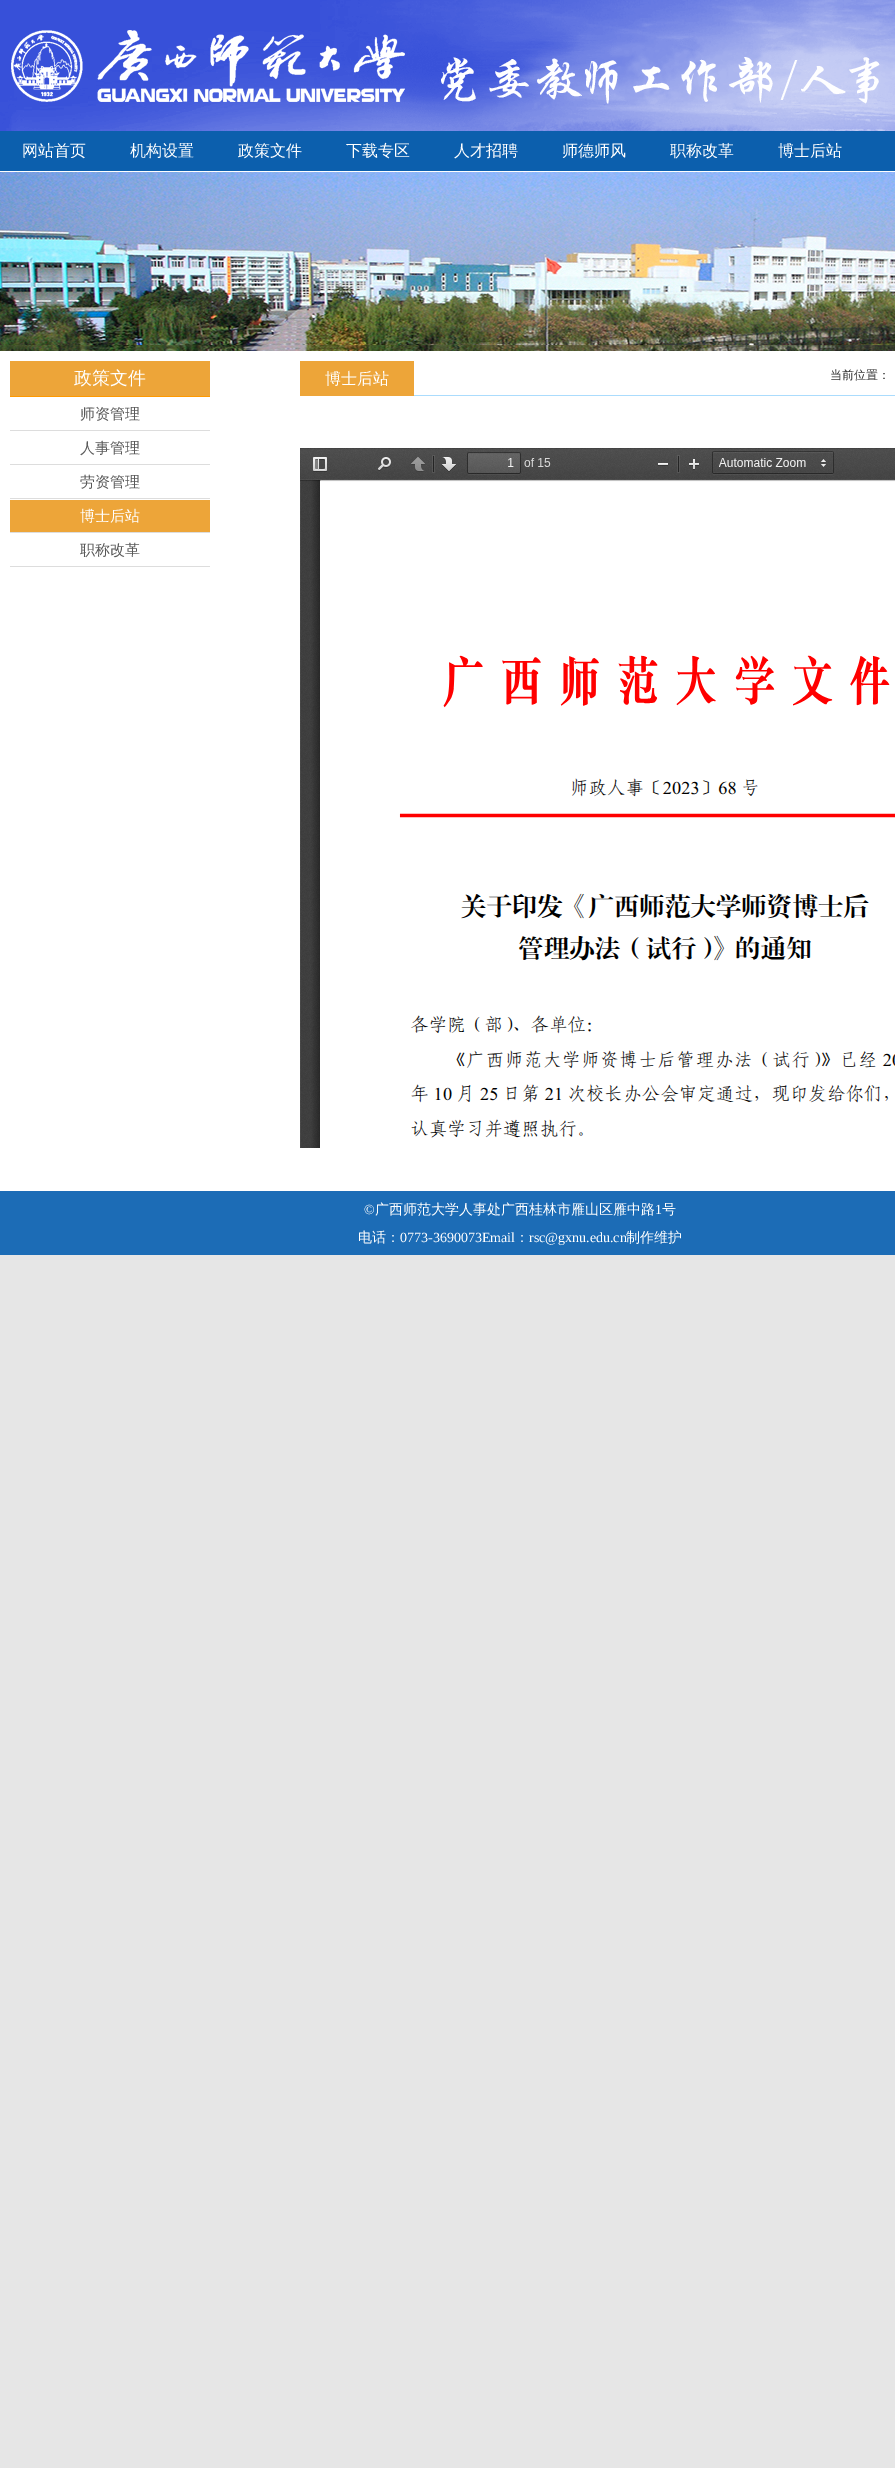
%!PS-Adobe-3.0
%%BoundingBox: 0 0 895 2468
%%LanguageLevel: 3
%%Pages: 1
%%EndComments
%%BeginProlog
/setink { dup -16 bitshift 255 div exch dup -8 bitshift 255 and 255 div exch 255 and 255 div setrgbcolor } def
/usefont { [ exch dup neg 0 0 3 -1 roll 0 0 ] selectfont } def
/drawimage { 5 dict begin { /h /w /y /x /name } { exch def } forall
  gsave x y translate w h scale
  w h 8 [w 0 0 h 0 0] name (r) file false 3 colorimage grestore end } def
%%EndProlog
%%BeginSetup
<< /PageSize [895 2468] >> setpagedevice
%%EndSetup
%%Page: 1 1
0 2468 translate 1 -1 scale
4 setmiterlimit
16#E6E6E6 setink
0 0 895 2468 rectfill
(img1.raw) 0 0 895 131 drawimage
16#0C5FAD setink
0 131 895 40 rectfill
/WenQuanYiZenHei-Medium 16 usefont
16#FFFFFF setink
[
    [(网站首页) 22 156]
    [(机构设置) 130 156]
    [(政策文件) 238 156]
    [(下载专区) 346 156]
    [(人才招聘) 454 156]
    [(师德师风) 562 156]
    [(职称改革) 670 156]
    [(博士后站) 778 156]
] { aload pop moveto show } forall
(img2.raw) 0 171 895 180 drawimage
0 351 895 840 rectfill
16#EDA539 setink
10 361 200 35 rectfill
/WenQuanYiZenHei-Medium 18 usefont
16#FFFFFF setink
74 384 moveto (政策文件) show
16#FF9900 setink
10 396 200 1 rectfill
16#DDDDDD setink
10 430 200 1 rectfill
/WenQuanYiZenHei-Medium 15 usefont
16#585858 setink
80 419 moveto (师资管理) show
16#DDDDDD setink
10 464 200 1 rectfill
16#585858 setink
80 453 moveto (人事管理) show
16#DDDDDD setink
10 498 200 1 rectfill
16#585858 setink
80 487 moveto (劳资管理) show
16#EDA539 setink
10 500 200 32 rectfill
16#DDDDDD setink
10 532 200 1 rectfill
16#FFFFFF setink
80 521 moveto (博士后站) show
16#DDDDDD setink
10 566 200 1 rectfill
16#585858 setink
80 555 moveto (职称改革) show
16#ABDCFD setink
414 395 481 1 rectfill
16#EDA539 setink
300 361 114 35 rectfill
/WenQuanYiZenHei-Medium 16 usefont
16#FFFFFF setink
325 384 moveto (博士后站) show
/WenQuanYiZenHei-Medium 12 usefont
16#333333 setink
830 379 moveto (当前位置：) show
(img3.raw) 300 448 595 700 drawimage
16#1C6CB6 setink
0 1191 895 64 rectfill
/LiberationSerif-Regular 14 usefont
16#FFFFFF setink
364 1214 moveto (©) show
/WenQuanYiZenHei-Medium 14 usefont
375 1214 moveto (广西师范大学人事处广西桂林市雁山区雁中路) show
/LiberationSerif-Regular 14 usefont
655 1214 moveto (1) show
/WenQuanYiZenHei-Medium 14 usefont
662 1214 moveto (号) show
358 1242 moveto (电话：) show
/LiberationSerif-Regular 14 usefont
400 1242 moveto (0773-3690073Email) show
/WenQuanYiZenHei-Medium 14 usefont
515 1242 moveto (：) show
/LiberationSerif-Regular 14 usefont
529 1242 moveto (rsc@gxnu.edu.cn) show
/WenQuanYiZenHei-Medium 14 usefont
626 1242 moveto (制作维护) show
showpage
%%EOF
